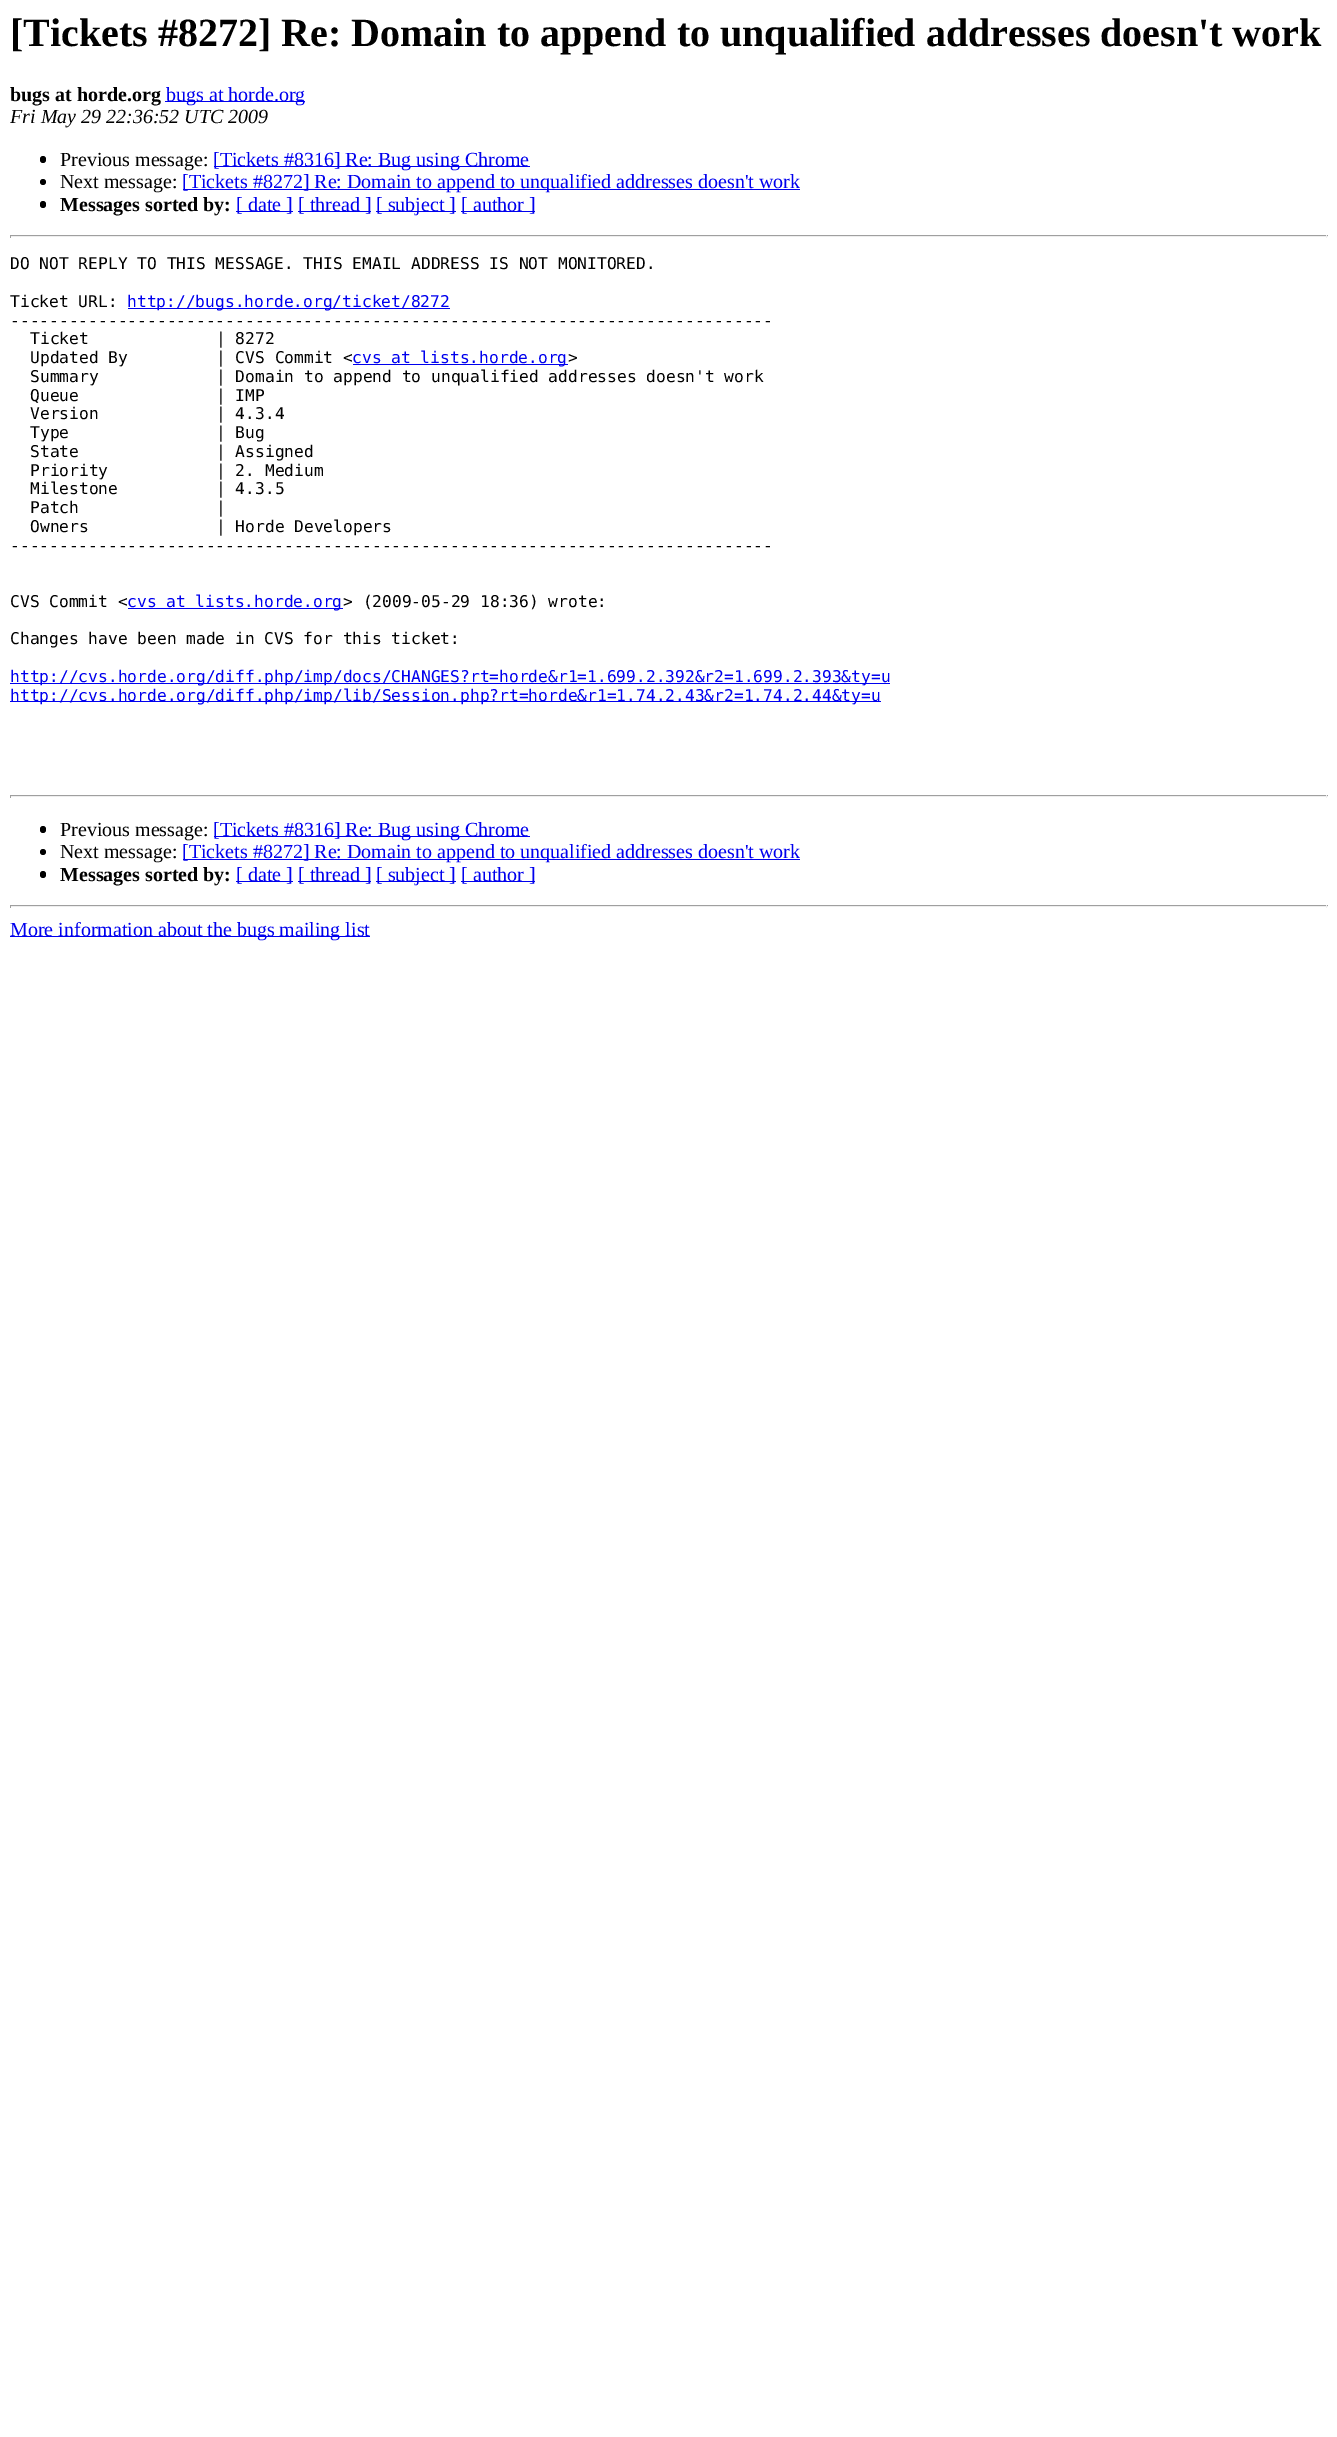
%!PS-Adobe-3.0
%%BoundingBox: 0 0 1337 2437
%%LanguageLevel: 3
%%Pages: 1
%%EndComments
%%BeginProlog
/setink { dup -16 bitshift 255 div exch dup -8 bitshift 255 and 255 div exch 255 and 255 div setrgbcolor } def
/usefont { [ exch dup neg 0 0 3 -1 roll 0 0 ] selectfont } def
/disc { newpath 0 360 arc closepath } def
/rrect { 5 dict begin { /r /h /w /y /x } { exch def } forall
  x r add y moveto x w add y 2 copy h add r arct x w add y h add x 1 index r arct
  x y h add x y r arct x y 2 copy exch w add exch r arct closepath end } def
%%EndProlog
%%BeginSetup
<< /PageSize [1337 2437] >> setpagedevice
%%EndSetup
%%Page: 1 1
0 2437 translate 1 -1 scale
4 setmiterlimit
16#FFFFFF setink
0 0 1337 2437 rectfill
/LiberationSerif-Bold 40 usefont
16#000000 setink
10 46 moveto ([Tickets #8272] Re: Domain to append to unqualified addresses doesn't work) show
/LiberationSerif-Bold 20 usefont
10 101 moveto (bugs at horde.org) show
16#0000EE setink
165 101 140 1 rectfill
/LiberationSerif-Regular 20 usefont
166 101 moveto (bugs at horde.org) show
/LiberationSerif-Italic 20 usefont
16#000000 setink
10 123 moveto (Fri May 29 22:36:52 UTC 2009) show
40 156 6 7 3 rrect fill
/LiberationSerif-Regular 20 usefont
60 166 moveto (Previous message:) show
16#0000EE setink
214 166 316 1 rectfill
213 166 moveto ([Tickets #8316] Re: Bug using Chrome) show
16#000000 setink
43 182 3 disc fill
60 188 moveto (Next message:) show
16#0000EE setink
183 189 617 1 rectfill
182 188 moveto ([Tickets #8272] Re: Domain to append to unqualified addresses doesn't work) show
16#000000 setink
40 201 6 7 3 rrect fill
/LiberationSerif-Bold 20 usefont
60 211 moveto (Messages sorted by:) show
16#0000EE setink
236 211 57 1 rectfill
/LiberationSerif-Regular 20 usefont
236 211 moveto ([ date ]) show
298 211 73 1 rectfill
298 211 moveto ([ thread ]) show
376 211 80 1 rectfill
376 211 moveto ([ subject ]) show
461 211 74 1 rectfill
461 211 moveto ([ author ]) show
[
    [10 235 1318 1 16#9F9F9F]
    [1326 235 1 3 16#EEEEEE]
    [10 236 1318 1 16#EEEEEE]
    [10 235 1 3 16#9F9F9F]
] { aload pop setink rectfill } forall
/DejaVuSansMono-Regular 16.25 usefont
16#000000 setink
10 269 moveto (DO NOT REPLY TO THIS MESSAGE. THIS EMAIL ADDRESS IS NOT MONITORED.) show
10 307 moveto (Ticket URL:) show
16#0000EE setink
128 308 322 1 rectfill
127 307 moveto (http://bugs.horde.org/ticket/8272) show
16#000000 setink
[
    [(------------------------------------------------------------------------------) 10 326]
    [(Ticket             | 8272) 30 344]
    [(Updated By         | CVS Commit <) 30 363]
] { aload pop moveto show } forall
16#0000EE setink
353 364 215 1 rectfill
352 363 moveto (cvs at lists.horde.org) show
16#000000 setink
[
    [(>) 568 363]
    [(Summary            | Domain to append to unqualified addresses doesn't work) 30 382]
    [(Queue              | IMP) 30 401]
    [(Version            | 4.3.4) 30 419]
    [(Type               | Bug) 30 438]
    [(State              | Assigned) 30 457]
    [(Priority           | 2. Medium) 30 476]
    [(Milestone          | 4.3.5) 30 494]
    [(Patch              |) 30 513]
    [(Owners             | Horde Developers) 30 532]
    [(------------------------------------------------------------------------------) 10 551]
    [(CVS Commit <) 10 607]
] { aload pop moveto show } forall
16#0000EE setink
128 608 215 1 rectfill
127 607 moveto (cvs at lists.horde.org) show
16#000000 setink
343 607 moveto (> \(2009-05-29 18:36\) wrote:) show
10 644 moveto (Changes have been made in CVS for this ticket:) show
16#0000EE setink
10 683 880 1 rectfill
10 682 moveto (http://cvs.horde.org/diff.php/imp/docs/CHANGES?rt=horde&r1=1.699.2.392&r2=1.699.2.393&ty=u) show
10 701 871 1 rectfill
10 701 moveto (http://cvs.horde.org/diff.php/imp/lib/Session.php?rt=horde&r1=1.74.2.43&r2=1.74.2.44&ty=u) show
[
    [10 795 1318 1 16#9F9F9F]
    [1326 795 1 3 16#EEEEEE]
    [10 796 1318 1 16#EEEEEE]
    [10 795 1 3 16#9F9F9F]
] { aload pop setink rectfill } forall
16#000000 setink
40 826 6 7 3 rrect fill
/LiberationSerif-Regular 20 usefont
60 836 moveto (Previous message:) show
16#0000EE setink
214 836 316 1 rectfill
213 836 moveto ([Tickets #8316] Re: Bug using Chrome) show
16#000000 setink
43 852 3 disc fill
60 858 moveto (Next message:) show
16#0000EE setink
183 859 617 1 rectfill
182 858 moveto ([Tickets #8272] Re: Domain to append to unqualified addresses doesn't work) show
16#000000 setink
40 871 6 7 3 rrect fill
/LiberationSerif-Bold 20 usefont
60 881 moveto (Messages sorted by:) show
16#0000EE setink
236 881 57 1 rectfill
/LiberationSerif-Regular 20 usefont
236 881 moveto ([ date ]) show
298 881 73 1 rectfill
298 881 moveto ([ thread ]) show
376 881 80 1 rectfill
376 881 moveto ([ subject ]) show
461 881 74 1 rectfill
461 881 moveto ([ author ]) show
[
    [10 905 1318 1 16#9F9F9F]
    [1326 905 1 3 16#EEEEEE]
    [10 906 1318 1 16#EEEEEE]
    [10 905 1 3 16#9F9F9F]
    [10 936 360 1 16#0000EE]
] { aload pop setink rectfill } forall
10 936 moveto (More information about the bugs mailing list) show
showpage
%%EOF
